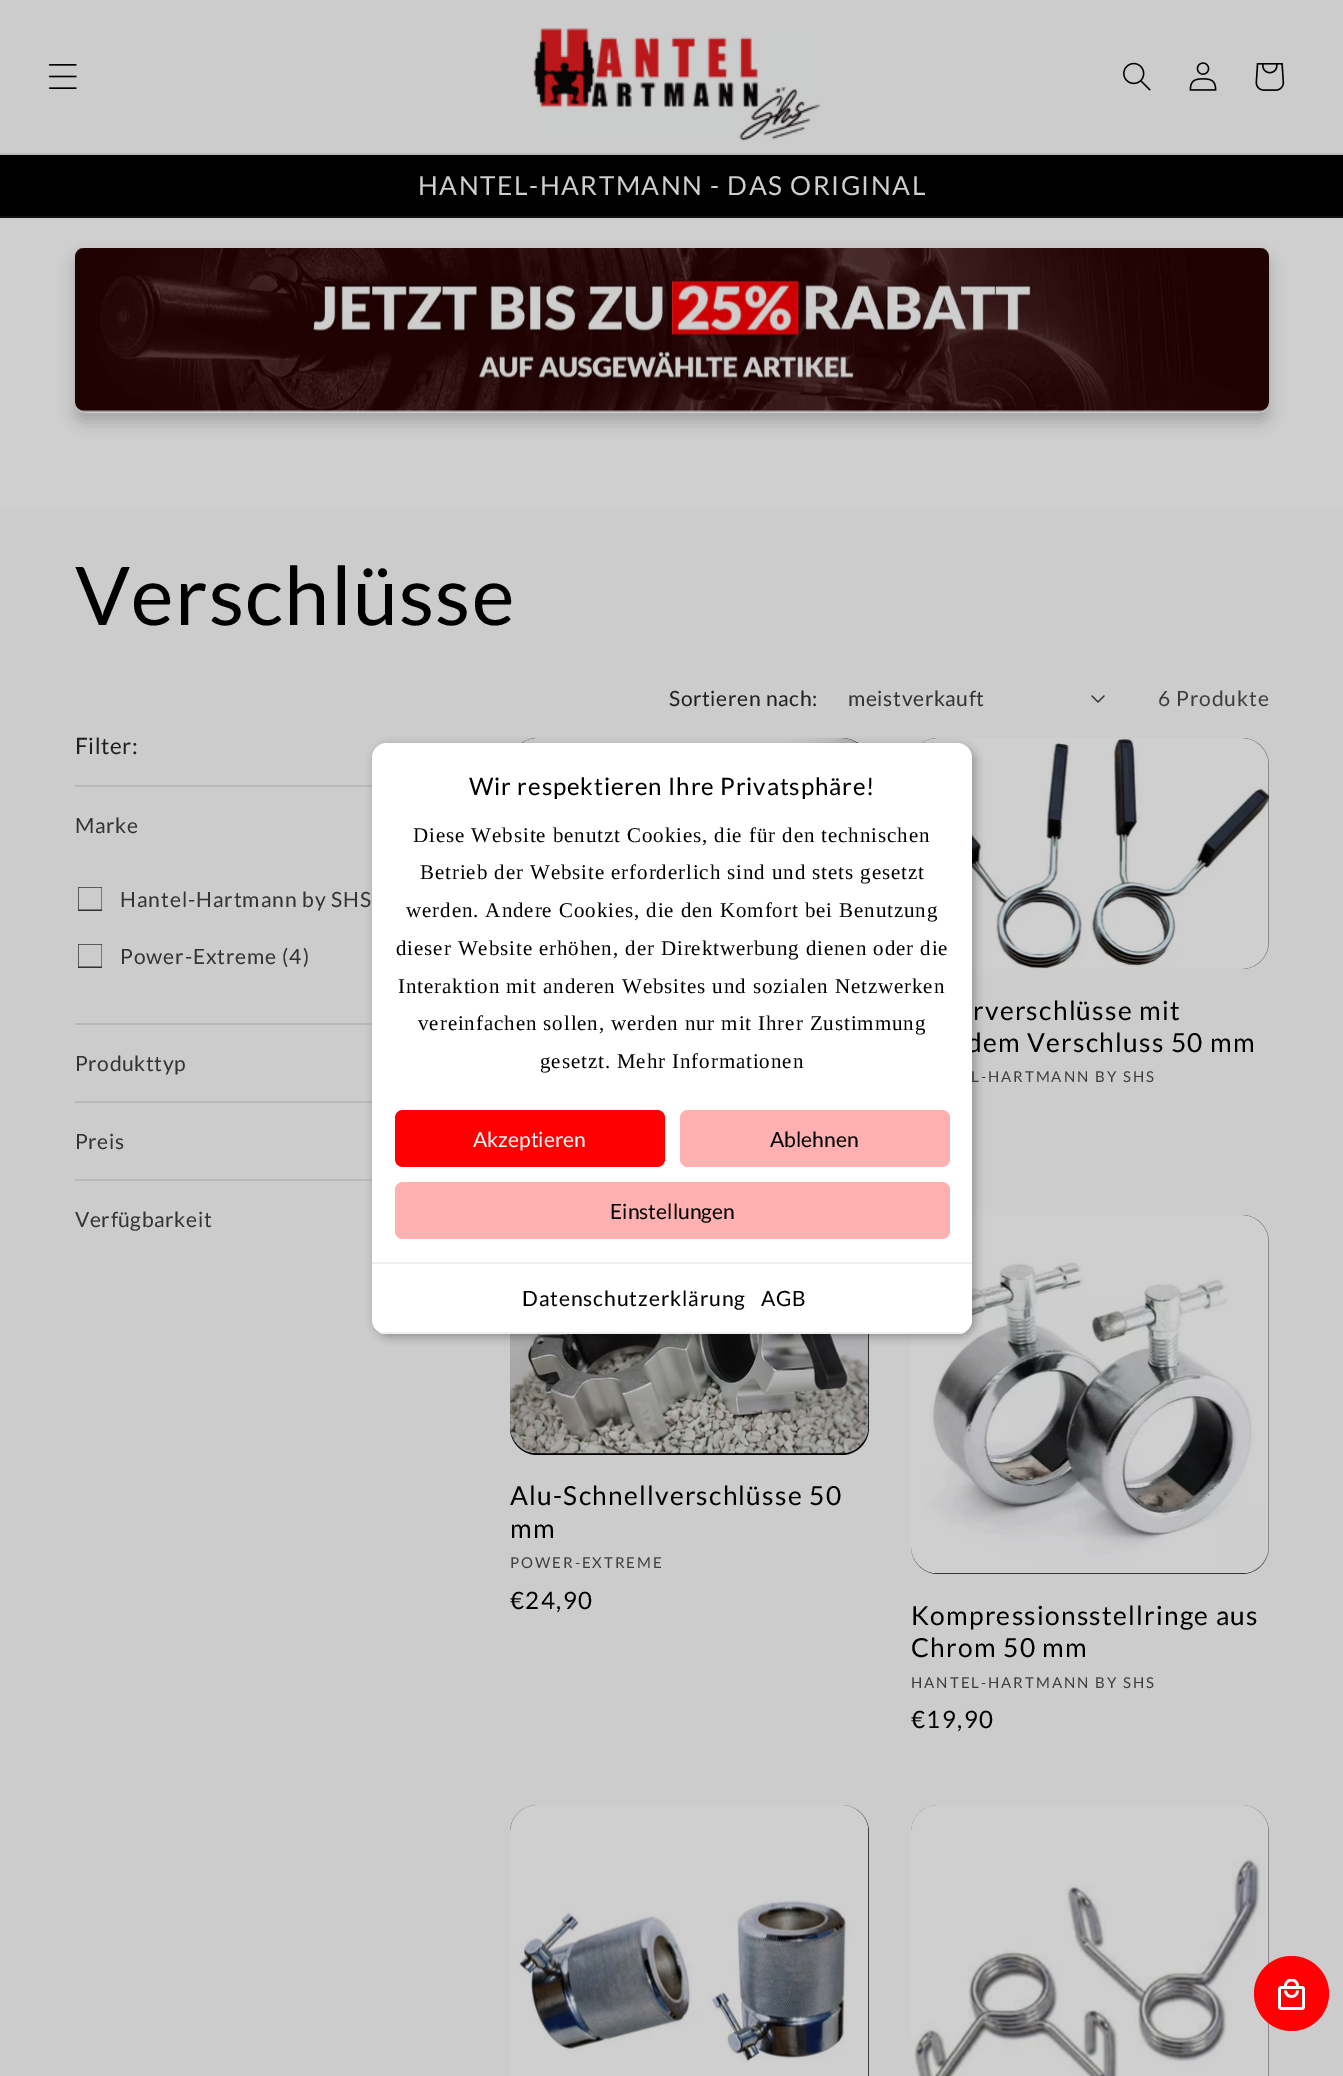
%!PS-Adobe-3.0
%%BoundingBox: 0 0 1343 2076
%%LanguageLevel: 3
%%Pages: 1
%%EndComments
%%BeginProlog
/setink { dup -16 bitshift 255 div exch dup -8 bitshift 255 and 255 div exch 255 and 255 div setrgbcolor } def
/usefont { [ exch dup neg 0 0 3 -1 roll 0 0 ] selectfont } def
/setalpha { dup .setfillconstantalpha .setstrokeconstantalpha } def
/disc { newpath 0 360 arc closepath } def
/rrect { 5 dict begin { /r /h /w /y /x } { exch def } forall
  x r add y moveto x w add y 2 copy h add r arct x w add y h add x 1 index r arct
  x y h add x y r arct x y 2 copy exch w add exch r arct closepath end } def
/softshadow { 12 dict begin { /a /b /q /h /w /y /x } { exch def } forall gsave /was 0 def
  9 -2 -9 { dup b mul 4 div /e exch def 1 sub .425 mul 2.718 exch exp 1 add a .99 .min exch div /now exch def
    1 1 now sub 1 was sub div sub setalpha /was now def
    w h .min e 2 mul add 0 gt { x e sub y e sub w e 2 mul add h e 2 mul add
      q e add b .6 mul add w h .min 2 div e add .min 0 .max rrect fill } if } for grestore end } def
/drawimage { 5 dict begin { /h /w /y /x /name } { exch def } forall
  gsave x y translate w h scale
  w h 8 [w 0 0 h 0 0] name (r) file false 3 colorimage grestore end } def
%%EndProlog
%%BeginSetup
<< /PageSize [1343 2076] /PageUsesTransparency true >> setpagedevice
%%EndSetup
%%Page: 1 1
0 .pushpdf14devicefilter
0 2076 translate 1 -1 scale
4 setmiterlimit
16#CFCFCF setink
0 0 1343 2076 rectfill
16#CCCCCC setink
0 0 1343 153 rectfill
16#BCBCBC setink
0 153 1343 2 rectfill
(img1.raw) 48 64 29 25 drawimage
(img2.raw) 533 28 288 114 drawimage
(img3.raw) 1123 62 28 29 drawimage
(img4.raw) 1189 62 28 29 drawimage
(img5.raw) 1255 63 30 28 drawimage
16#000000 setink
0 155 1343 61 rectfill
16#101010 setink
0 216 1343 2 rectfill
/Lato-Regular 26.3 usefont
16#CFCFCF setink
418 195 moveto 1.5 0 (HANTEL-HARTMANN - DAS ORIGINAL) ashow
gsave
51 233 moveto 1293 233 lineto 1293 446 lineto 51 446 lineto closepath 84 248 moveto 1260 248 lineto 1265 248 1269 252 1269 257 curveto 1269 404 lineto 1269 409 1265 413 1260 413 curveto 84 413 lineto 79 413 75 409 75 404 curveto 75 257 lineto 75 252 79 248 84 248 curveto closepath eoclip newpath
16#000000 setink
75 257 1194 165 9 7.5 0.2 softshadow
grestore
(img6.raw) 75 248 1194 164 drawimage
16#CCCCCC setink
0 509 1343 1567 rectfill
/Lato-Regular 81 usefont
16#000000 setink
75 625 moveto 1.25 0 (Verschlüsse) ashow
/Lato-Regular 21 usefont
16#1F1F1F setink
669 706 moveto 0.6 0 (Sortieren nach:) ashow
16#333333 setink
848 706 moveto 0.6 0 (meistverkauft) ashow
(img7.raw) 1091 695 14 8 drawimage
16#3D3D3D setink
1158 706 moveto 0.9 0 (6 Produkte) ashow
/Lato-Regular 22.5 usefont
16#1F1F1F setink
75 754 moveto 0.6 0 (Filter:) ashow
16#B8B8B8 setink
75 785 297 2 rectfill
/Lato-Regular 21 usefont
16#333333 setink
75 833 moveto 0.6 0 (Marke) ashow
gsave
78 887 24 24 rectclip
1.5 setlinewidth
77.75 886.75 24.5 23.5 rectstroke
grestore
120 907 moveto 0.9 0 (Hantel-Hartmann by SHS) ashow
gsave
78 944 24 24 rectclip
1.5 setlinewidth
77.75 943.75 24.5 23.5 rectstroke
grestore
120 964 moveto 0.9 0 (Power-Extreme \(4\)) ashow
16#B8B8B8 setink
75 1023 297 2 rectfill
16#333333 setink
75 1071 moveto 0.6 0 (Produkttyp) ashow
16#B8B8B8 setink
75 1101 297 2 rectfill
16#333333 setink
75 1149 moveto 0.6 0 (Preis) ashow
16#B8B8B8 setink
75 1179 297 2 rectfill
16#333333 setink
75 1227 moveto 0.6 0 (Verfügbarkeit) ashow
16#000000 setink
510 738 359 281 27 rrect fill
(img8.raw) 521 738 336 5 drawimage
911 738 358 231 27 rrect fill
(img9.raw) 922 738 348 231 drawimage
/Lato-Regular 26.3 usefont
973 1020 moveto 1.25 0 (rverschlüsse mit) ashow
967 1052 moveto 1.25 0 (dem Verschluss 50 mm) ashow
/Lato-Regular 15 usefont
16#3D3D3D setink
971 1082 moveto 1.95 0 (L-HARTMANN BY SHS) ashow
16#000000 setink
510 1215 359 240 27 rrect fill
(img10.raw) 510 1334 359 120 drawimage
/Lato-Regular 26.3 usefont
510 1505 moveto 1.25 0 (Alu-Schnellverschlüsse 50) ashow
510 1538 moveto 1.25 0 (mm) ashow
/Lato-Regular 15 usefont
16#3D3D3D setink
510 1568 moveto 1.95 0 (POWER-EXTREME) ashow
/Lato-Regular 24 usefont
16#000000 setink
510 1609 moveto 1.5 0 (€24,90) ashow
911 1215 358 359 27 rrect fill
(img11.raw) 911 1215 358 359 drawimage
/Lato-Regular 26.3 usefont
911 1625 moveto 1.25 0 (Kompressionsstellringe aus) ashow
911 1657 moveto 1.25 0 (Chrom 50 mm) ashow
/Lato-Regular 15 usefont
16#3D3D3D setink
911 1688 moveto 1.95 0 (HANTEL-HARTMANN BY SHS) ashow
/Lato-Regular 24 usefont
16#000000 setink
911 1728 moveto 1.5 0 (€19,90) ashow
510 1805 359 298 27 rrect fill
(img12.raw) 510 1805 359 271 drawimage
911 1805 358 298 27 rrect fill
(img13.raw) 911 1805 358 271 drawimage
375 746 600 591 15 4.5 0.15 softshadow
375 746 600 591 15 4.5 0.15 softshadow
16#FFFFFF setink
372 743 600 591 15 rrect fill
16#000000 setink
469 795 moveto 0.9 0 (Wir respektieren Ihre Privatsphäre!) ashow
/LiberationSerif-Regular 21 usefont
413 842 moveto 0.9 0 (Diese Website benutzt Cookies, die für den technischen) ashow
420 879 moveto 0.9 0 (Betrieb der Website erforderlich sind und stets gesetzt) ashow
406 917 moveto 0.9 0 (werden. Andere Cookies, die den Komfort bei Benutzung) ashow
396 955 moveto 0.9 0 (dieser Website erhöhen, der Direktwerbung dienen oder die) ashow
398 993 moveto 0.9 0 (Interaktion mit anderen Websites und sozialen Netzwerken) ashow
418 1030 moveto 0.9 0 (vereinfachen sollen, werden nur mit Ihrer Zustimmung) ashow
540 1068 moveto 0.9 0 (gesetzt. Mehr Informationen) ashow
16#FF0000 setink
395 1110 270 57 8 rrect fill
/Lato-Regular 21 usefont
16#FFFFFF setink
473 1147 moveto (Akzeptieren) show
16#FFB0B0 setink
680 1110 270 57 8 rrect fill
16#000000 setink
770 1147 moveto (Ablehnen) show
16#FFB0B0 setink
395 1182 555 57 8 rrect fill
16#000000 setink
610 1219 moveto (Einstellungen) show
16#FFFFFF setink
372 1262 moveto 972 1262 lineto 972 1319 lineto 972 1327.5 965.5 1334 957 1334 curveto 387 1334 lineto 378.5 1334 372 1327.5 372 1319 curveto closepath fill
16#EEEEEE setink
372 1262 600 2 rectfill
gsave
372 743 600 591 15 rrect clip newpath
372 1332 600 2 rectfill
grestore
16#000000 setink
522 1306 moveto 0.9 0 (Datenschutzerklärung) ashow
761 1306 moveto 0.9 0 (AGB) ashow
16#FF0004 setink
1291.5 1993.5 37.5 disc fill
(img14.raw) 1278 1979 27 31 drawimage
.poppdf14devicefilter showpage
%%EOF
